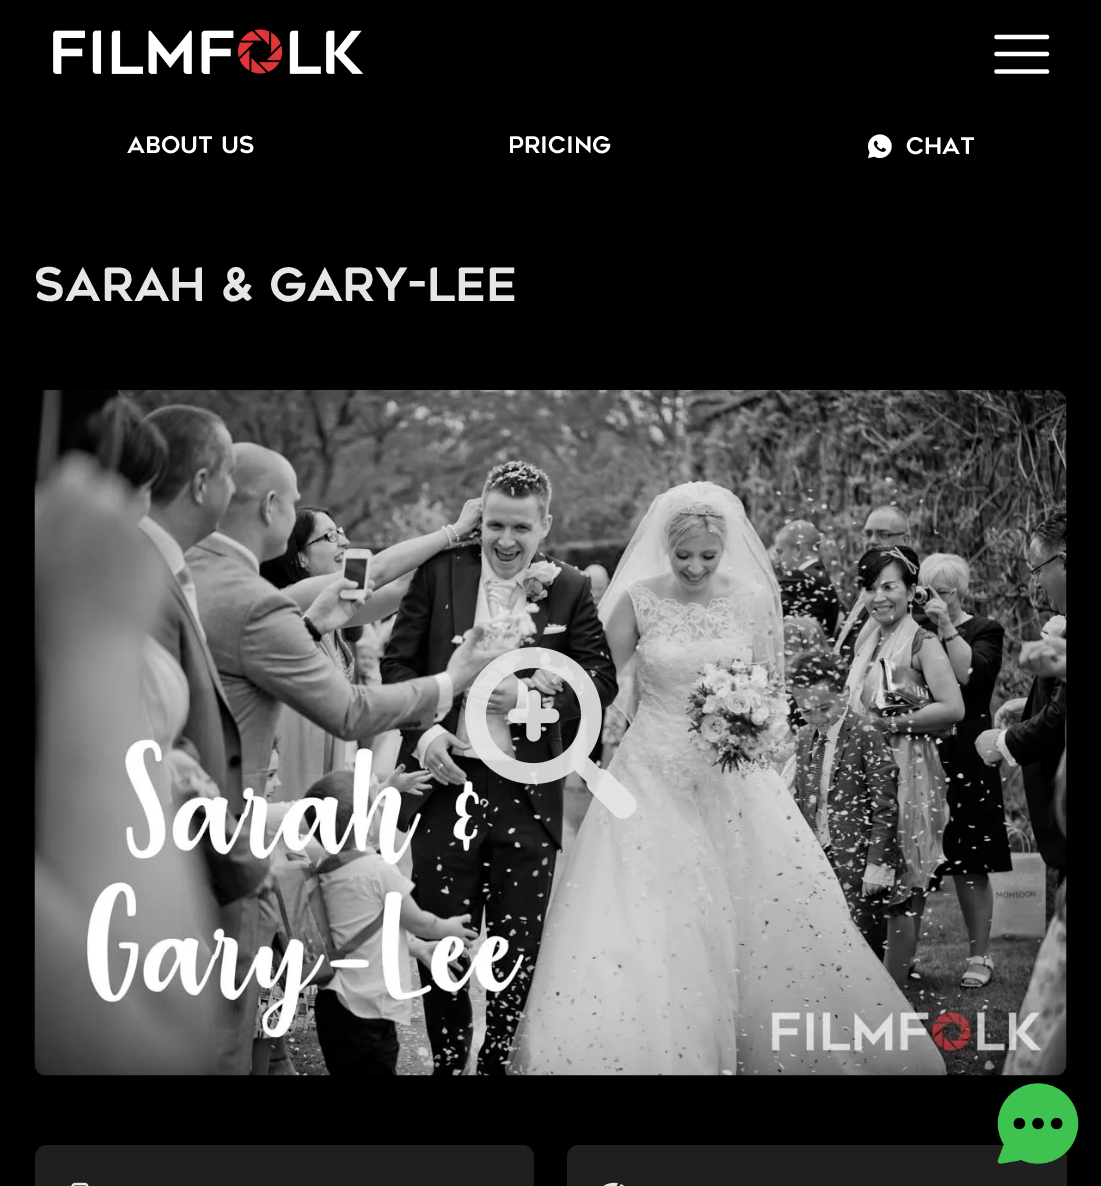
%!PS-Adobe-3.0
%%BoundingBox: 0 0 1101 1186
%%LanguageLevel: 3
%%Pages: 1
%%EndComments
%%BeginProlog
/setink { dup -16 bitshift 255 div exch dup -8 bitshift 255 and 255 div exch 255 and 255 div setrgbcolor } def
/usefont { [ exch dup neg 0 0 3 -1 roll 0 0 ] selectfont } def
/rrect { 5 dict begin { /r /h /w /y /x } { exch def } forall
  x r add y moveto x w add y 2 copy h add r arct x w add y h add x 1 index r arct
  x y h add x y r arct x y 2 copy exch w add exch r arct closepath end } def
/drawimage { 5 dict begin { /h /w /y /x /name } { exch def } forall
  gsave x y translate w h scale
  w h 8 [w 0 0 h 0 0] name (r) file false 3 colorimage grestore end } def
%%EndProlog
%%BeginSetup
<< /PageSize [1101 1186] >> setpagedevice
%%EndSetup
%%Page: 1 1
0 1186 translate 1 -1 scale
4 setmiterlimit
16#000000 setink
0 0 1101 1186 rectfill
(img1.raw) 53 29 311 45 drawimage
16#FFFFFF setink
4.3 setlinewidth
1 setlinecap
1 setlinejoin
996.5 54 moveto 1047 54 lineto 996.5 71.5 moveto 1047 71.5 lineto 996.5 37 moveto 1047 37 lineto stroke
/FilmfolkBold-Bold 23 usefont
127 153 moveto (ABOUT US) show
508 153 moveto (PRICING) show
(img2.raw) 868 134 24 25 drawimage
906 154 moveto (CHAT) show
/FilmfolkBold-Bold 45.9 usefont
16#E6E6E6 setink
34 301 moveto (Sarah & Gary-Lee) show
(img3.raw) 34 390 1033 686 drawimage
(img4.raw) 465 647 172 172 drawimage
16#1F1F1F setink
35 1145 499 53 12 rrect fill
(img5.raw) 71 1182 18 4 drawimage
567 1145 500 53 12 rrect fill
(img6.raw) 603 1182 22 4 drawimage
(img7.raw) 997 1083 82 81 drawimage
showpage
%%EOF
